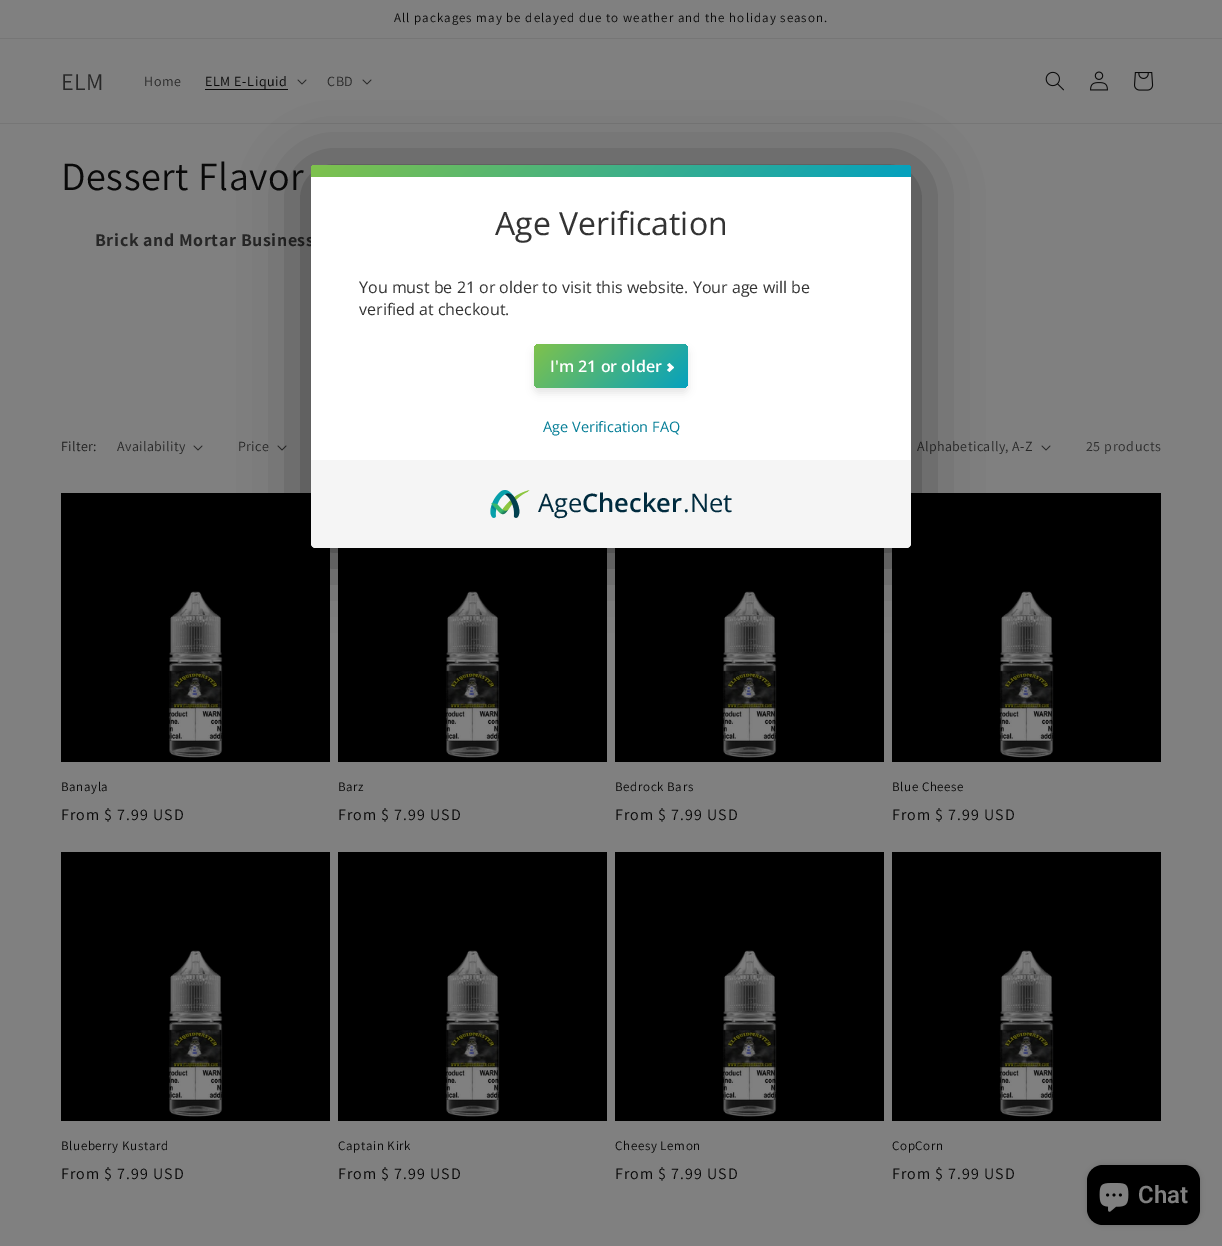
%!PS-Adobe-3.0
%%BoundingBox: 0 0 1222 1246
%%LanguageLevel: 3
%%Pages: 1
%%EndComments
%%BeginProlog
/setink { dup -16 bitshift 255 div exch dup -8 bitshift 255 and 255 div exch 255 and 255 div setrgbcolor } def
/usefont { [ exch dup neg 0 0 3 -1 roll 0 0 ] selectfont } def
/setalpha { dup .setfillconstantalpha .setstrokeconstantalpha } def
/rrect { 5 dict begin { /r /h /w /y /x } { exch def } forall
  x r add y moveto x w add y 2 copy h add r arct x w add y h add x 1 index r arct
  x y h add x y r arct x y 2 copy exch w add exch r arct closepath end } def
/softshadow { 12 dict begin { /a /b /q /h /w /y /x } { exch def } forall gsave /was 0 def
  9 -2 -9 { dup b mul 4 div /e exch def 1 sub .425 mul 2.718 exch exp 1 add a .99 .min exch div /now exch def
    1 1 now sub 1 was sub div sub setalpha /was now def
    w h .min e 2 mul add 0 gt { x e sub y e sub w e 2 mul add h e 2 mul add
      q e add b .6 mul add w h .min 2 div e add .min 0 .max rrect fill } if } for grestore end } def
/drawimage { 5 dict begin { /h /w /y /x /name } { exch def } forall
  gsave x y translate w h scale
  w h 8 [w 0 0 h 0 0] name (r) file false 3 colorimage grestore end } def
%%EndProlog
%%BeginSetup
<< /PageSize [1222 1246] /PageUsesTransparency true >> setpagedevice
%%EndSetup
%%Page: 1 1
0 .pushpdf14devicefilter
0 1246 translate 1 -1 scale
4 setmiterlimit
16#808080 setink
0 0 1222 1246 rectfill
16#767676 setink
0 38 1222 1 rectfill
/Assistant-Regular 13 usefont
16#090909 setink
394 22 moveto 1 0 (All packages may be delayed due to weather and the holiday season.) ashow
16#767676 setink
0 123 1222 1 rectfill
/Assistant-Regular 24 usefont
16#272727 setink
61 90 moveto 0.6 0 (ELM) ashow
/Assistant-Regular 14 usefont
144 86 moveto 0.6 0 (Home) ashow
16#090909 setink
205 86 moveto 0.6 0 (ELM E-Liquid) ashow
205 89 83 1 rectfill
(img1.raw) 297 79 10 6 drawimage
16#272727 setink
327 86 moveto 0.6 0 (CBD) ashow
(img1.raw) 362 79 10 6 drawimage
(img2.raw) 1045 71 19 20 drawimage
(img3.raw) 1090 71 18 20 drawimage
(img4.raw) 1134 72 20 19 drawimage
/Assistant-Regular 40 usefont
16#090909 setink
61 190 moveto 0.6 0 (Dessert Flavor) ashow
/Assistant-Bold 18 usefont
16#272727 setink
95 246 moveto 0.6 0 (Brick and Mortar Business) ashow
/Assistant-Regular 14 usefont
16#1B1B1B setink
61 451 moveto 0.4 0 (Filter:) ashow
16#272727 setink
117 451 moveto 0.4 0 (Availability) ashow
(img1.raw) 193 445 10 6 drawimage
238 451 moveto 0.4 0 (Price) ashow
(img1.raw) 277 445 10 6 drawimage
917 451 moveto 0.4 0 (Alphabetically, A-Z) ashow
(img1.raw) 1041 445 10 6 drawimage
16#2D2D2D setink
1086 451 moveto 0.6 0 (25 products) ashow
(img5.raw) 61 493 269 269 drawimage
/Assistant-Regular 13 usefont
16#090909 setink
61 791 moveto 0.6 0 (Banayla) ashow
/Assistant-Regular 16 usefont
61 820 moveto 1 0 (From $ 7.99 USD) ashow
(img6.raw) 338 548 269 214 drawimage
/Assistant-Regular 13 usefont
338 791 moveto 0.6 0 (Barz) ashow
/Assistant-Regular 16 usefont
338 820 moveto 1 0 (From $ 7.99 USD) ashow
(img7.raw) 615 548 269 214 drawimage
/Assistant-Regular 13 usefont
615 791 moveto 0.6 0 (Bedrock Bars) ashow
/Assistant-Regular 16 usefont
615 820 moveto 1 0 (From $ 7.99 USD) ashow
(img8.raw) 892 493 269 269 drawimage
/Assistant-Regular 13 usefont
892 791 moveto 0.6 0 (Blue Cheese) ashow
/Assistant-Regular 16 usefont
892 820 moveto 1 0 (From $ 7.99 USD) ashow
(img5.raw) 61 852 269 269 drawimage
/Assistant-Regular 13 usefont
61 1150 moveto 0.6 0 (Blueberry Kustard) ashow
/Assistant-Regular 16 usefont
61 1179 moveto 1 0 (From $ 7.99 USD) ashow
(img5.raw) 338 852 269 269 drawimage
/Assistant-Regular 13 usefont
338 1150 moveto 0.6 0 (Captain Kirk) ashow
/Assistant-Regular 16 usefont
338 1179 moveto 1 0 (From $ 7.99 USD) ashow
(img8.raw) 615 852 269 269 drawimage
/Assistant-Regular 13 usefont
615 1150 moveto 0.6 0 (Cheesy Lemon) ashow
/Assistant-Regular 16 usefont
615 1179 moveto 1 0 (From $ 7.99 USD) ashow
(img8.raw) 892 852 269 269 drawimage
/Assistant-Regular 13 usefont
892 1150 moveto 0.6 0 (CopCorn) ashow
/Assistant-Regular 16 usefont
892 1179 moveto 1 0 (From $ 7.99 USD) ashow
16#000000 setink
308 172 606 389 8 32 0.5 softshadow
16#FFFFFF setink
311 165 600 383 5 rrect fill
gsave 316 165 moveto 906 165 lineto 909 165 911 167 911 170 curveto 911 177 lineto 311 177 lineto 311 170 lineto 311 167 313 165 316 165 curveto closepath clip newpath
<< /ShadingType 2 /ColorSpace /DeviceRGB /Coords [458 18 764 324] /Extend [true true] /Function << /FunctionType 2 /Domain [0 1] /C0 [0.498 0.761 0.298] /C1 [0.016 0.631 0.749] /N 1 >> >> shfill grestore
/OpenSans-Regular 32 usefont
16#333333 setink
495 235 moveto (Age Verification) show
/OpenSans-Regular 16 usefont
359 293 moveto (You must be 21 or older to visit this website. Your age will be) show
359 315 moveto (verified at checkout.) show
16#000000 setink
534 349 154 44 5 4 0.1 softshadow
gsave 534 344 154 44 5 rrect clip newpath
<< /ShadingType 2 /ColorSpace /DeviceRGB /Coords [562 317 661 416] /Extend [true true] /Function << /FunctionType 2 /Domain [0 1] /C0 [0.498 0.761 0.298] /C1 [0.016 0.631 0.749] /N 1 >> >> shfill grestore
/OpenSans-SemiBold 16 usefont
16#FFFFFF setink
550 372 moveto (I'm 21 or older) show
667 365 moveto 669.5 363 lineto 674 367.5 lineto 671.5 369.5 lineto closepath fill
667 370 moveto 671.5 365.5 lineto 674 367.5 lineto 669.5 372 lineto closepath fill
/OpenSans-Regular 14.5 usefont
16#037D96 setink
543 432 moveto (Age Verification FAQ) show
16#F5F5F5 setink
311 460 moveto 911 460 lineto 911 543 lineto 911 546 909 548 906 548 curveto 316 548 lineto 313 548 311 546 311 543 curveto closepath fill
(img9.raw) 490 490 40 28 drawimage
/OpenSans-Regular 25.5 usefont
16#002B3E setink
538 512 moveto (Age) show
/OpenSans-SemiBold 25.5 usefont
582 512 moveto (Checker) show
/OpenSans-Regular 25.5 usefont
683 512 moveto (.Net) show
16#000000 setink
1087 1165 113 60 16 2.5 0.15 softshadow
1087 1165 113 60 16 rrect fill
(img10.raw) 1099 1183 30 29 drawimage
/Roboto-SemiBold 24 usefont
16#808080 setink
1138 1203 moveto (Chat) show
.poppdf14devicefilter showpage
%%EOF
